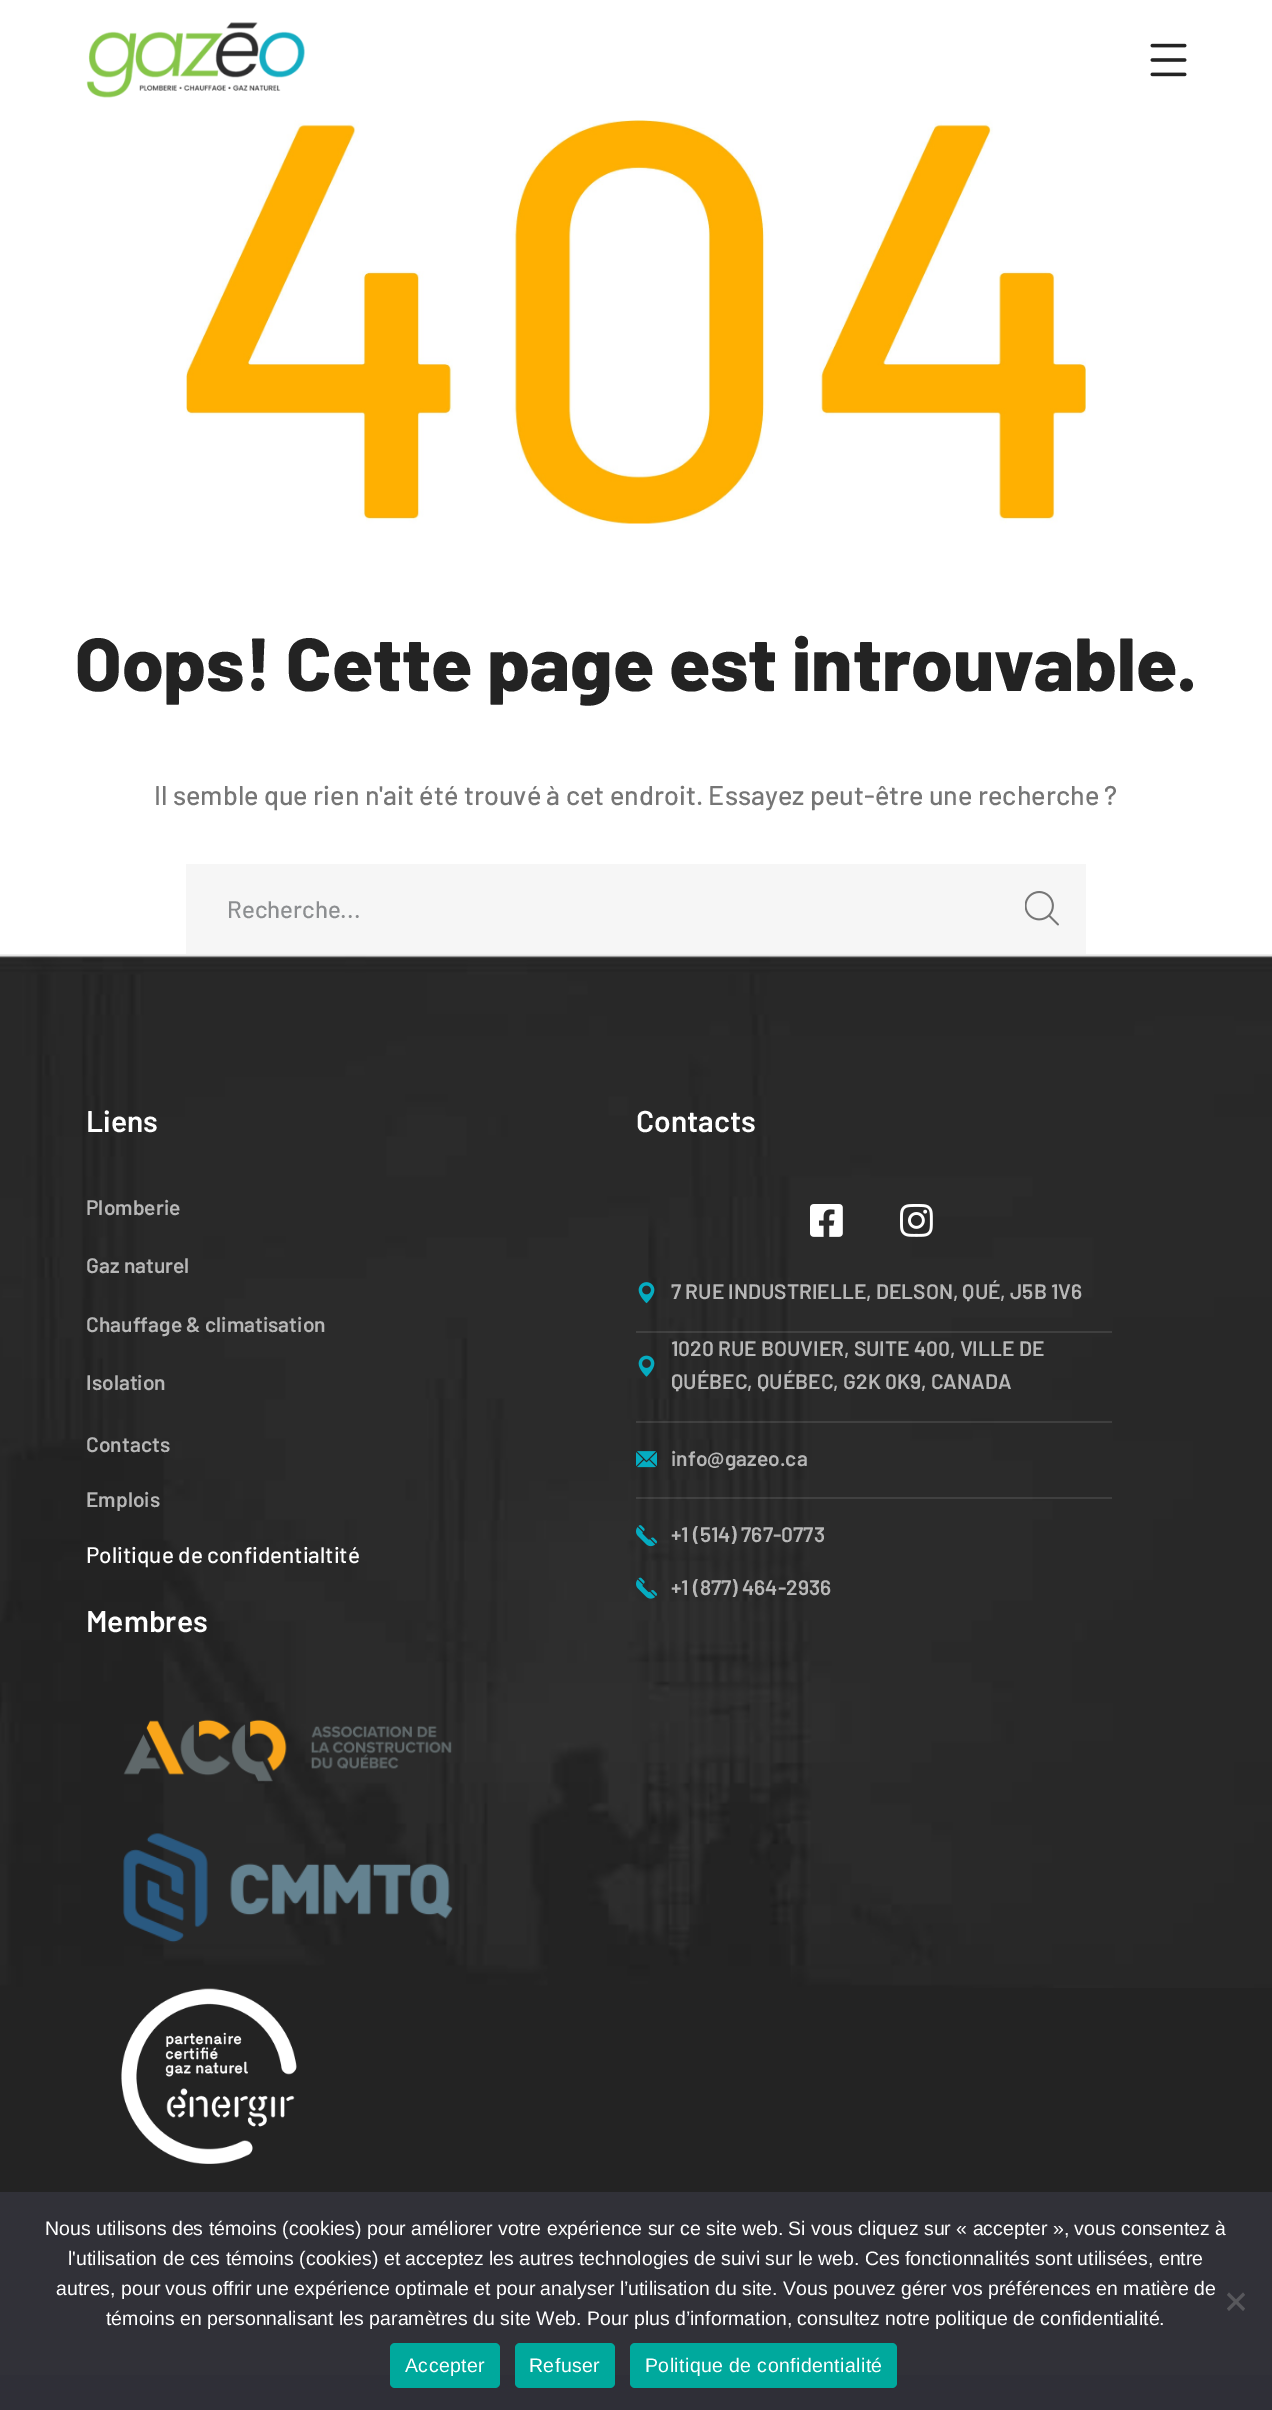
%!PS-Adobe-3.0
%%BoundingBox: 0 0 1272 2410
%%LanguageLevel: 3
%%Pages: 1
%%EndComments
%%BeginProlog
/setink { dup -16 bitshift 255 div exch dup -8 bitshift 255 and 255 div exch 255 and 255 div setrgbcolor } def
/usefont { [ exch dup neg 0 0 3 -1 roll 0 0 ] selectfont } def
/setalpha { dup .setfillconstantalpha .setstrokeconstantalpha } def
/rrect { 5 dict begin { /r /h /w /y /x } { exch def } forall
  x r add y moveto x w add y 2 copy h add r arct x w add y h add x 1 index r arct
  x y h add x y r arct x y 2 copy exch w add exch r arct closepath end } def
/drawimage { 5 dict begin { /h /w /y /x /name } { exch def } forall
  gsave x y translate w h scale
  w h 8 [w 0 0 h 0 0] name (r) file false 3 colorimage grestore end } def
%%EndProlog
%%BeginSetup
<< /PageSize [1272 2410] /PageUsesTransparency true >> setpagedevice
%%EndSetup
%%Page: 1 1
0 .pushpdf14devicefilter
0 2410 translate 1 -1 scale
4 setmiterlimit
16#FFFFFF setink
0 0 1272 2410 rectfill
(img1.raw) 86 22 219 76 drawimage
(img2.raw) 1150 43 37 34 drawimage
(img3.raw) 186 120 900 404 drawimage
/Barlow-ExtraBold 75 usefont
16#232323 setink
75 691 moveto (Oops! Cette page est introuvable.) show
/Barlow-Medium 27 usefont
16#767676 setink
154 805 moveto (Il semble que rien n'ait été trouvé à cet endroit. Essayez peut-être une recherche ?) show
16#F6F6F6 setink
186 864 900 90 rectfill
/Barlow-Medium 24 usefont
16#8C8E90 setink
227 918 moveto (Recherche...) show
(img4.raw) 1025 891 34 35 drawimage
16#232323 setink
0 1988 1272 204 rectfill
16#313138 setink
0 2192 1272 183 rectfill
(img5.raw) 0 954 1272 1034 drawimage
/Barlow-SemiBold 30 usefont
16#FFFFFF setink
86 1132 moveto (Liens) show
/Barlow-SemiBold 21 usefont
16#B7B7B7 setink
[
    [(Plomberie) 86 1215]
    [(Gaz naturel) 86 1273]
    [(Chauffage & climatisation) 86 1332]
    [(Isolation) 86 1390]
    [(Contacts) 86 1452]
    [(Emplois) 86 1507]
] { aload pop moveto show } forall
/Barlow-Medium 22.5 usefont
16#FFFFFF setink
86 1563 moveto (Politique de confidentialtité) show
/Barlow-SemiBold 30 usefont
636 1132 moveto (Contacts) show
(img6.raw) 810 1204 33 33 drawimage
(img7.raw) 900 1204 33 33 drawimage
0.1 setalpha
636 1331 476 2 rectfill
1 setalpha
(img8.raw) 638 1282 17 22 drawimage
/Barlow-SemiBold 21 usefont
16#B7B7B7 setink
671 1299 moveto (7 RUE INDUSTRIELLE, DELSON, QUÉ, J5B 1V6) show
0.1 setalpha
16#FFFFFF setink
636 1421 476 2 rectfill
1 setalpha
(img9.raw) 638 1355 17 22 drawimage
16#B7B7B7 setink
671 1356 moveto (1020 RUE BOUVIER, SUITE 400, VILLE DE) show
671 1389 moveto (QUÉBEC, QUÉBEC, G2K 0K9, CANADA) show
0.1 setalpha
16#FFFFFF setink
636 1497 476 2 rectfill
1 setalpha
(img10.raw) 636 1451 21 17 drawimage
16#B7B7B7 setink
671 1466 moveto (info@gazeo.ca) show
(img11.raw) 636 1525 21 22 drawimage
671 1542 moveto (+1 \(514\) 767-0773) show
(img12.raw) 636 1577 21 22 drawimage
671 1595 moveto (+1 \(877\) 464-2936) show
/Barlow-SemiBold 30 usefont
16#FFFFFF setink
86 1632 moveto (Membres) show
(img13.raw) 123 1719 329 63 drawimage
(img14.raw) 123 1833 330 110 drawimage
(img15.raw) 121 1988 176 176 drawimage
16#2F2F37 setink
0 2375 1272 35 rectfill
/LiberationSans-Regular 19.5 usefont
16#FFFFFF setink
[
    [(Nous utilisons des témoins \(cookies\) pour améliorer votre expérience sur ce site web. Si vous cliquez sur « accepter », vous consentez à) 45 2235]
    [(l'utilisation de ces témoins \(cookies\) et acceptez les autres technologies de suivi sur le web. Ces fonctionnalités sont utilisées, entre) 68 2265]
    [(autres, pour vous offrir une expérience optimale et pour analyser l’utilisation du site. Vous pouvez gérer vos préférences en matière de) 56 2295]
    [(témoins en personnalisant les paramètres du site Web. Pour plus d’information, consultez notre politique de confidentialité.) 106 2325]
] { aload pop moveto show } forall
16#58585C setink
1243 2292.5 moveto 1245 2295 lineto 1229 2311 lineto 1227 2308.5 lineto closepath fill
1227 2295 moveto 1229 2292.5 lineto 1245 2308.5 lineto 1243 2311 lineto closepath fill
16#00A99D setink
390 2343 110 45 5 rrect fill
16#FFFFFF setink
405 2372 moveto 0.4 0 (Accepter) ashow
16#00A99D setink
515 2343 100 45 5 rrect fill
16#FFFFFF setink
529 2372 moveto 0.4 0 (Refuser) ashow
16#00A99D setink
630 2343 267 45 5 rrect fill
16#FFFFFF setink
645 2372 moveto 0.4 0 (Politique de confidentialité) ashow
.poppdf14devicefilter showpage
%%EOF
